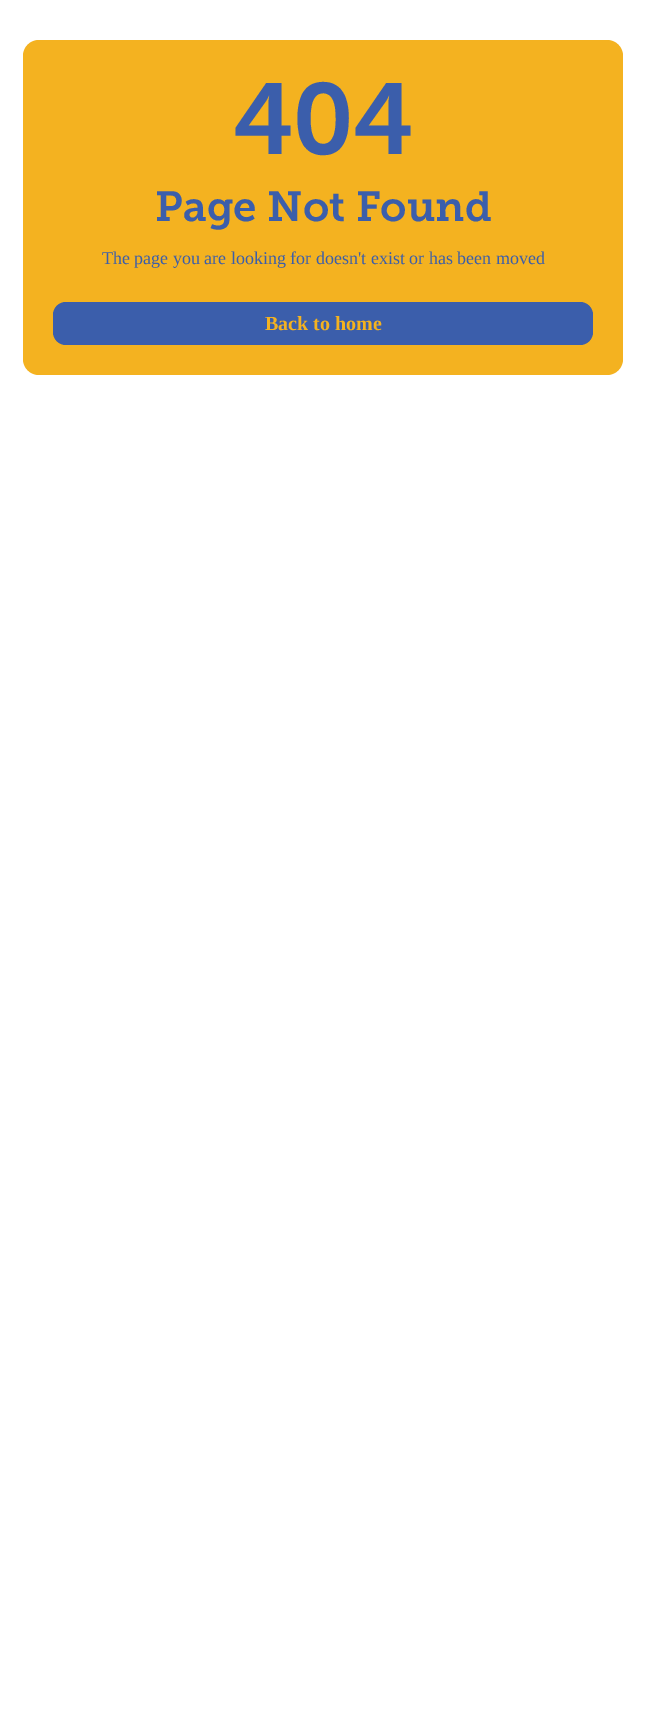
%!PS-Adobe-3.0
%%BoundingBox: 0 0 646 1709
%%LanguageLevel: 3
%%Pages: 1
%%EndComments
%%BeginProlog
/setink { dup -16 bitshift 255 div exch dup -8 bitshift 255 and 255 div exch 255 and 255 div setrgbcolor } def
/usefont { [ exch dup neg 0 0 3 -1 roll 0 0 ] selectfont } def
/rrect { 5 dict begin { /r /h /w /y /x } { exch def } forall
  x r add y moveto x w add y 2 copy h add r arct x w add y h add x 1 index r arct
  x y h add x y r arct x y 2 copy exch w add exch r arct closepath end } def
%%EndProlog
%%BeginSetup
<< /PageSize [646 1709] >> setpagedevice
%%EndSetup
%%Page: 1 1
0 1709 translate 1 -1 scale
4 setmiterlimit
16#FFFFFF setink
0 0 646 1709 rectfill
16#F4B220 setink
23 40 600 335 16 rrect fill
/MuseoSlab-SemiBold 100 usefont
16#3B5EAB setink
233 154 moveto -2 0 (404) ashow
/MuseoSlab-SemiBold 42 usefont
155 221 moveto (Page Not Found) show
/LiberationSerif-Regular 18 usefont
102 264 moveto (The page you are looking for doesn't exist or has been moved) show
53 302 540 43 13 rrect fill
/LiberationSerif-Bold 20 usefont
16#F4B220 setink
265 330 moveto (Back to home) show
showpage
%%EOF
